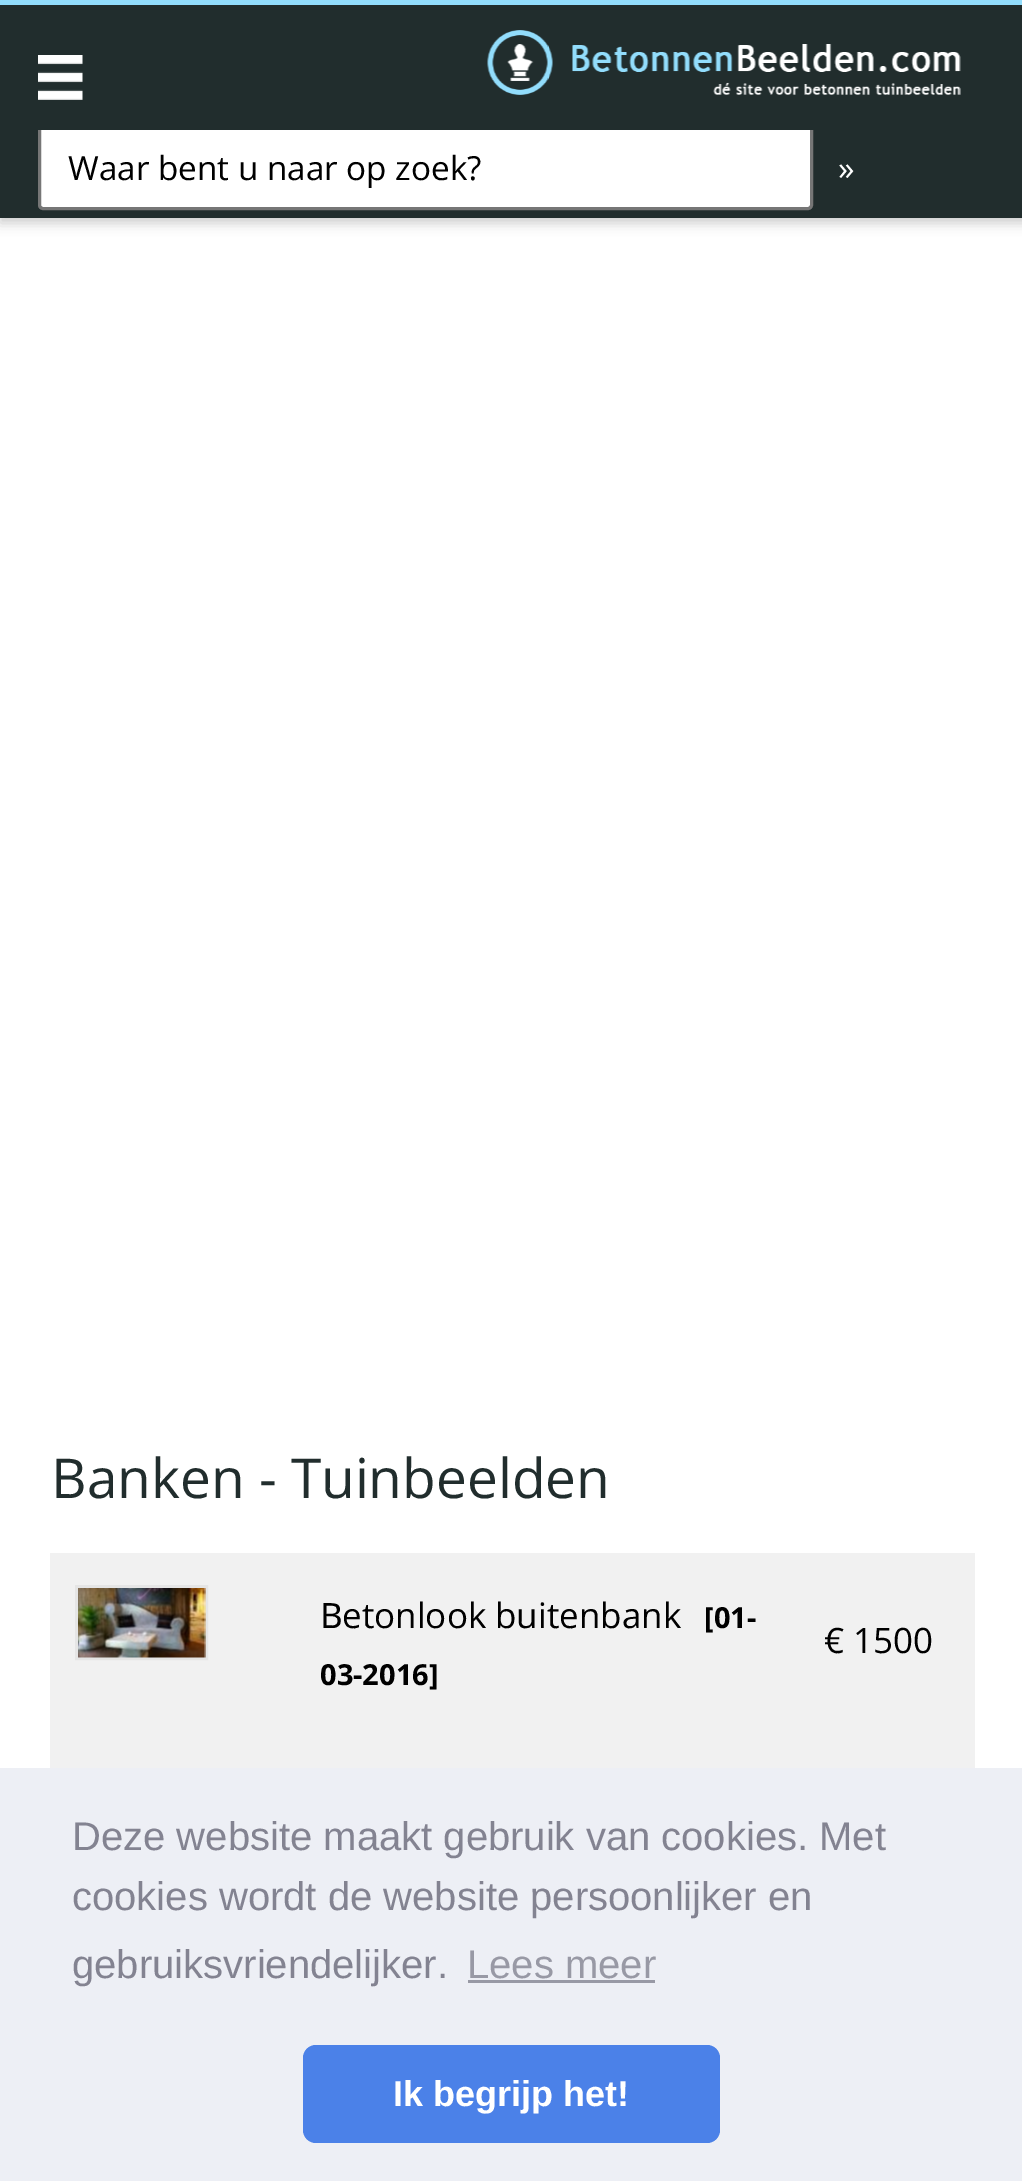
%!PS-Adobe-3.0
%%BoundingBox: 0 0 1022 2181
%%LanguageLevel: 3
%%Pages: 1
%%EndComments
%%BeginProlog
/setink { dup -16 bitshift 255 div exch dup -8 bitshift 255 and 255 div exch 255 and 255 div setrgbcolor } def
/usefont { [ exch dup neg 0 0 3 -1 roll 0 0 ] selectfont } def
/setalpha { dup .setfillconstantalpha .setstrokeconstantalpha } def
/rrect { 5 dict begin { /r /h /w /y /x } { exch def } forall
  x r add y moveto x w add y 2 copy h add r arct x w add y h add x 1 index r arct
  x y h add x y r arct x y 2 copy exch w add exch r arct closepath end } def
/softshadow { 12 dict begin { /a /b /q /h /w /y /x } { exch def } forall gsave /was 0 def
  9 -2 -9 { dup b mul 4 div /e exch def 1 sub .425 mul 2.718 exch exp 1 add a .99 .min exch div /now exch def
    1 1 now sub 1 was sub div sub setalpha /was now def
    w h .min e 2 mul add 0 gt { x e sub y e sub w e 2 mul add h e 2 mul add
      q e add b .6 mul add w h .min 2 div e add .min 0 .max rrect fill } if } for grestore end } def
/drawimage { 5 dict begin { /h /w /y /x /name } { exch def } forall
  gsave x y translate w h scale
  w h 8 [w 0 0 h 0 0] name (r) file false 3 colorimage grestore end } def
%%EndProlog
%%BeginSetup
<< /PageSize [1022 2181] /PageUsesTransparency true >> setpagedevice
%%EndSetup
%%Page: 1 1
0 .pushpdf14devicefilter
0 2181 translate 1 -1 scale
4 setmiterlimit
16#FFFFFF setink
0 0 1022 2181 rectfill
16#000000 setink
0 5 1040 218 0 6 0.2 softshadow
16#212D2D setink
0 130 1022 88 rectfill
16#FFFFFF setink
39.5 126.5 772 82 3.5 rrect gsave fill grestore
16#767676 setink
3 setlinewidth
stroke
16#212D2D setink
0 5 1022 125 rectfill
16#92DDFC setink
0 0 1022 5 rectfill
(img1.raw) 38 55 45 45 drawimage
(img2.raw) 487 30 474 65 drawimage
/OpenSans-Regular 33.25 usefont
16#000000 setink
68 180 moveto (Waar bent u naar op zoek?) show
16#FFFFFF setink
838 180 moveto (») show
/OpenSans-Regular 55 usefont
16#212D2D setink
51 1498 moveto (Banken - Tuinbeelden) show
16#F1F1F1 setink
50 1553 925 215 rectfill
16#E5E5E5 setink
76.5 1586.5 130 72 rectstroke
(img3.raw) 78 1588 128 70 drawimage
/NotoSans-Regular 35 usefont
16#000000 setink
320 1628 moveto (B) show
/OpenSans-Regular 35 usefont
342 1628 moveto (etonlook buitenbank) show
/OpenSans-Bold 29 usefont
704 1628 moveto ([01-) show
320 1685 moveto (03-2016]) show
/OpenSans-Regular 35 usefont
824 1653 moveto (€ 1500) show
16#EDEFF5 setink
0 1768 1022 413 rectfill
/LiberationSans-Regular 40 usefont
16#838391 setink
[
    [(Deze website maakt gebruik van cookies. Met) 72 1850]
    [(cookies wordt de website persoonlijker en) 72 1910]
    [(gebruiksvriendelijker.) 72 1978]
] { aload pop moveto show } forall
16#9899A5 setink
467 1978 moveto (Lees meer) show
468 1980 187 3 rectfill
16#4B81E8 setink
303 2045 417 98 13 rrect fill
/LiberationSans-Bold 36 usefont
16#FFFFFF setink
393 2106 moveto (Ik begrijp het!) show
.poppdf14devicefilter showpage
%%EOF
